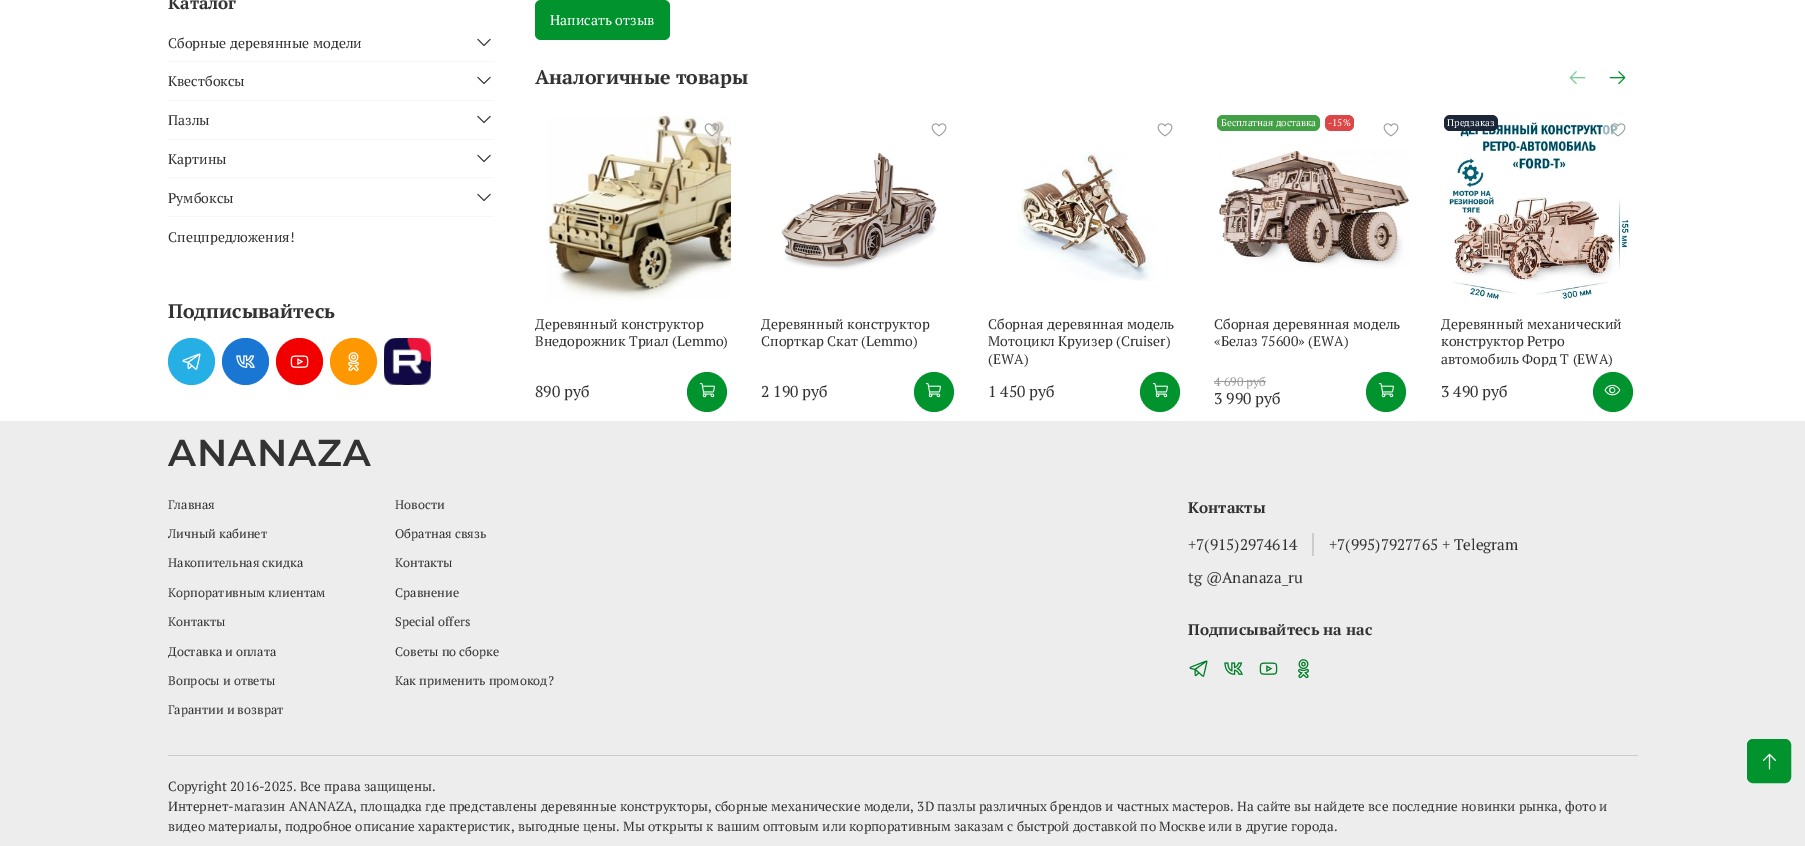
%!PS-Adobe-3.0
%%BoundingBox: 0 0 1805 846
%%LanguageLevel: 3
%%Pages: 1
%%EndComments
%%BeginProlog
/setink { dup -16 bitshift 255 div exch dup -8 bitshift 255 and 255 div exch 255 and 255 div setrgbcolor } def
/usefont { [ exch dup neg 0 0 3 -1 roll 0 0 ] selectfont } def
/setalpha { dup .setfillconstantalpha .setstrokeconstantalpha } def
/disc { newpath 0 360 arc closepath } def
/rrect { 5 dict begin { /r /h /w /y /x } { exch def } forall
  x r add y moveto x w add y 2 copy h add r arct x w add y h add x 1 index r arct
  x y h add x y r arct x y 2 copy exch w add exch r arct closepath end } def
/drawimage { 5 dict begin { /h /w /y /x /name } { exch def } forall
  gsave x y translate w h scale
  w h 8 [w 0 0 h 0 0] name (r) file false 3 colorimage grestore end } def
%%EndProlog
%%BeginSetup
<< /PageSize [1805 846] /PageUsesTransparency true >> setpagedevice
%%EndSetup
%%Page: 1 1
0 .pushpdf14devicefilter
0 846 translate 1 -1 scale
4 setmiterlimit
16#FFFFFF setink
0 0 1805 846 rectfill
/PTSerif-Bold 17 usefont
16#333333 setink
168 9 moveto (Каталог) show
16#F7F7F7 setink
168 61 326 1 rectfill
/PTSerif-Regular 14 usefont
16#333333 setink
168 48 moveto (Сборные деревянные модели) show
(img1.raw) 477 38 14 9 drawimage
16#F7F7F7 setink
168 100 326 1 rectfill
16#333333 setink
168 86 moveto (Квестбоксы) show
(img1.raw) 477 76 14 9 drawimage
16#F7F7F7 setink
168 139 326 1 rectfill
16#333333 setink
168 125 moveto (Пазлы) show
(img1.raw) 477 115 14 9 drawimage
16#F7F7F7 setink
168 177 326 1 rectfill
16#333333 setink
168 164 moveto (Картины) show
(img1.raw) 477 154 14 9 drawimage
16#F7F7F7 setink
168 216 326 1 rectfill
16#333333 setink
168 203 moveto (Румбоксы) show
(img1.raw) 477 193 14 9 drawimage
168 242 moveto (Спецпредложения!) show
/PTSerif-Bold 19.6 usefont
168 318 moveto (Подписывайтесь) show
16#26AFE5 setink
191.5 361.5 23.5 disc fill
(img2.raw) 182 353 19 17 drawimage
16#1976D2 setink
245.5 361.5 23.5 disc fill
(img3.raw) 236 355 19 13 drawimage
16#F20000 setink
299.5 361.5 23.5 disc fill
(img4.raw) 290 355 19 13 drawimage
16#FF9800 setink
353.5 361.5 23.5 disc fill
(img5.raw) 348 352 11 20 drawimage
(img6.raw) 384 338 47 47 drawimage
16#01942E setink
535 0 135 40 6 rrect fill
/PTSerif-Regular 14 usefont
16#FFFFFF setink
550 25 moveto (Написать отзыв) show
/PTSerif-Bold 19.6 usefont
16#333333 setink
535 84 moveto (Аналогичные товары) show
(img7.raw) 1569 71 17 14 drawimage
(img8.raw) 1609 71 17 14 drawimage
(img9.raw) 546 112 185 189 drawimage
0.6 setalpha
16#FFFFFF setink
712 131 16 disc fill
1 setalpha
(img10.raw) 704 123 16 14 drawimage
/PTSerif-Regular 14 usefont
16#333333 setink
535 329 moveto (Деревянный конструктор) show
535 346 moveto (Внедорожник Триал \(Lemmo\)) show
/PTSerif-Regular 15.75 usefont
535 397 moveto (890 руб) show
16#01942E setink
707 392 20 disc fill
(img11.raw) 699 383 16 15 drawimage
(img12.raw) 931 123 16 14 drawimage
(img13.raw) 781 151 157 119 drawimage
/PTSerif-Regular 14 usefont
16#333333 setink
761 329 moveto (Деревянный конструктор) show
761 346 moveto (Спорткар Скат \(Lemmo\)) show
/PTSerif-Regular 15.75 usefont
761 397 moveto (2 190 руб) show
16#01942E setink
934 392 20 disc fill
(img11.raw) 925 383 16 15 drawimage
(img12.raw) 1157 123 16 14 drawimage
(img14.raw) 1017 152 140 129 drawimage
/PTSerif-Regular 14 usefont
16#333333 setink
[
    [(Сборная деревянная модель) 988 329]
    [(Мотоцикл Круизер \(Cruiser\)) 988 346]
    [(\(EWA\)) 988 364]
] { aload pop moveto show } forall
/PTSerif-Regular 15.75 usefont
988 397 moveto (1 450 руб) show
16#01942E setink
1160 392 20 disc fill
(img11.raw) 1152 383 16 15 drawimage
16#43A047 setink
1217 115 103 16 6 rrect fill
/PTSerif-Regular 9.75 usefont
16#FFFFFF setink
1221 126 moveto (Бесплатная доставка) show
16#DC4646 setink
1325 115 29 16 6 rrect fill
16#FFFFFF setink
1328 126 moveto (-15%) show
(img12.raw) 1383 123 16 14 drawimage
(img15.raw) 1219 150 191 119 drawimage
/PTSerif-Regular 14 usefont
16#333333 setink
1214 329 moveto (Сборная деревянная модель) show
1214 346 moveto («Белаз 75600» \(EWA\)) show
/PTSerif-Regular 12.25 usefont
16#999999 setink
1214 386 moveto (4 690 руб) show
1214 381 52 1 rectfill
/PTSerif-Regular 15.75 usefont
16#333333 setink
1214 404 moveto (3 990 руб) show
16#01942E setink
1386 392 20 disc fill
(img11.raw) 1378 383 16 15 drawimage
(img17.raw) 1448 121 182 180 drawimage
16#1B2738 setink
1444 115 54 16 6 rrect fill
/PTSerif-Regular 9.75 usefont
16#FFFFFF setink
1447 126 moveto (Предзаказ) show
0.6 setalpha
1618 131 16 disc fill
1 setalpha
(img16.raw) 1610 123 16 14 drawimage
/PTSerif-Regular 14 usefont
16#333333 setink
[
    [(Деревянный механический) 1441 329]
    [(конструктор Ретро) 1441 346]
    [(автомобиль Форд Т \(EWA\)) 1441 364]
] { aload pop moveto show } forall
/PTSerif-Regular 15.75 usefont
1441 397 moveto (3 490 руб) show
16#01942E setink
1613 392 20 disc fill
(img18.raw) 1604 384 17 12 drawimage
16#EDEDED setink
0 421 1805 425 rectfill
(img19.raw) 168 439 203 27 drawimage
/PTSerif-Regular 12.6 usefont
16#333333 setink
[
    [(Главная) 168 509]
    [(Личный кабинет) 168 538]
    [(Накопительная скидка) 168 567]
    [(Корпоративным клиентам) 168 597]
    [(Контакты) 168 626]
    [(Доставка и оплата) 168 656]
    [(Вопросы и ответы) 168 685]
    [(Гарантии и возврат) 168 714]
    [(Новости) 395 509]
    [(Обратная связь) 395 538]
    [(Контакты) 395 567]
    [(Сравнение) 395 597]
    [(Special offers) 395 626]
    [(Советы по сборке) 395 656]
    [(Как применить промокод?) 395 685]
] { aload pop moveto show } forall
/PTSerif-Bold 15.4 usefont
1188 513 moveto (Контакты) show
16#CCCCCC setink
1312 533 2 23 rectfill
/PTSerif-Regular 15.4 usefont
16#333333 setink
[
    [(+7\(915\)2974614) 1188 550]
    [(+7\(995\)7927765 + Telegram) 1329 550]
    [(tg @Ananaza_ru) 1188 583]
] { aload pop moveto show } forall
/PTSerif-Bold 15.4 usefont
1188 635 moveto (Подписывайтесь на нас) show
(img20.raw) 1189 660 19 17 drawimage
(img21.raw) 1224 662 19 13 drawimage
(img22.raw) 1259 662 19 13 drawimage
(img23.raw) 1298 659 11 20 drawimage
16#CCCCCC setink
168 755 1470 1 rectfill
/PTSerif-Regular 13.33 usefont
16#333333 setink
[
    [(Copyright 2016-2025. Все права защищены.) 168 791]
    [(Интернет-магазин ANANAZA, площадка где представлены деревянные конструкторы, сборные механические модели, 3D пазлы различных брендов и частных мастеров. На сайте вы найдете все последние новинки рынка, фото и) 168 811]
    [(видео материалы, подробное описание характеристик, выгодные цены. Мы открыты к вашим оптовым или корпоративным заказам с быстрой доставкой по Москве или в другие города.) 168 831]
] { aload pop moveto show } forall
16#01942E setink
1747.5 739.5 43 43 5.5 rrect gsave fill grestore
stroke
(img24.raw) 1763 753 13 17 drawimage
.poppdf14devicefilter showpage
%%EOF
